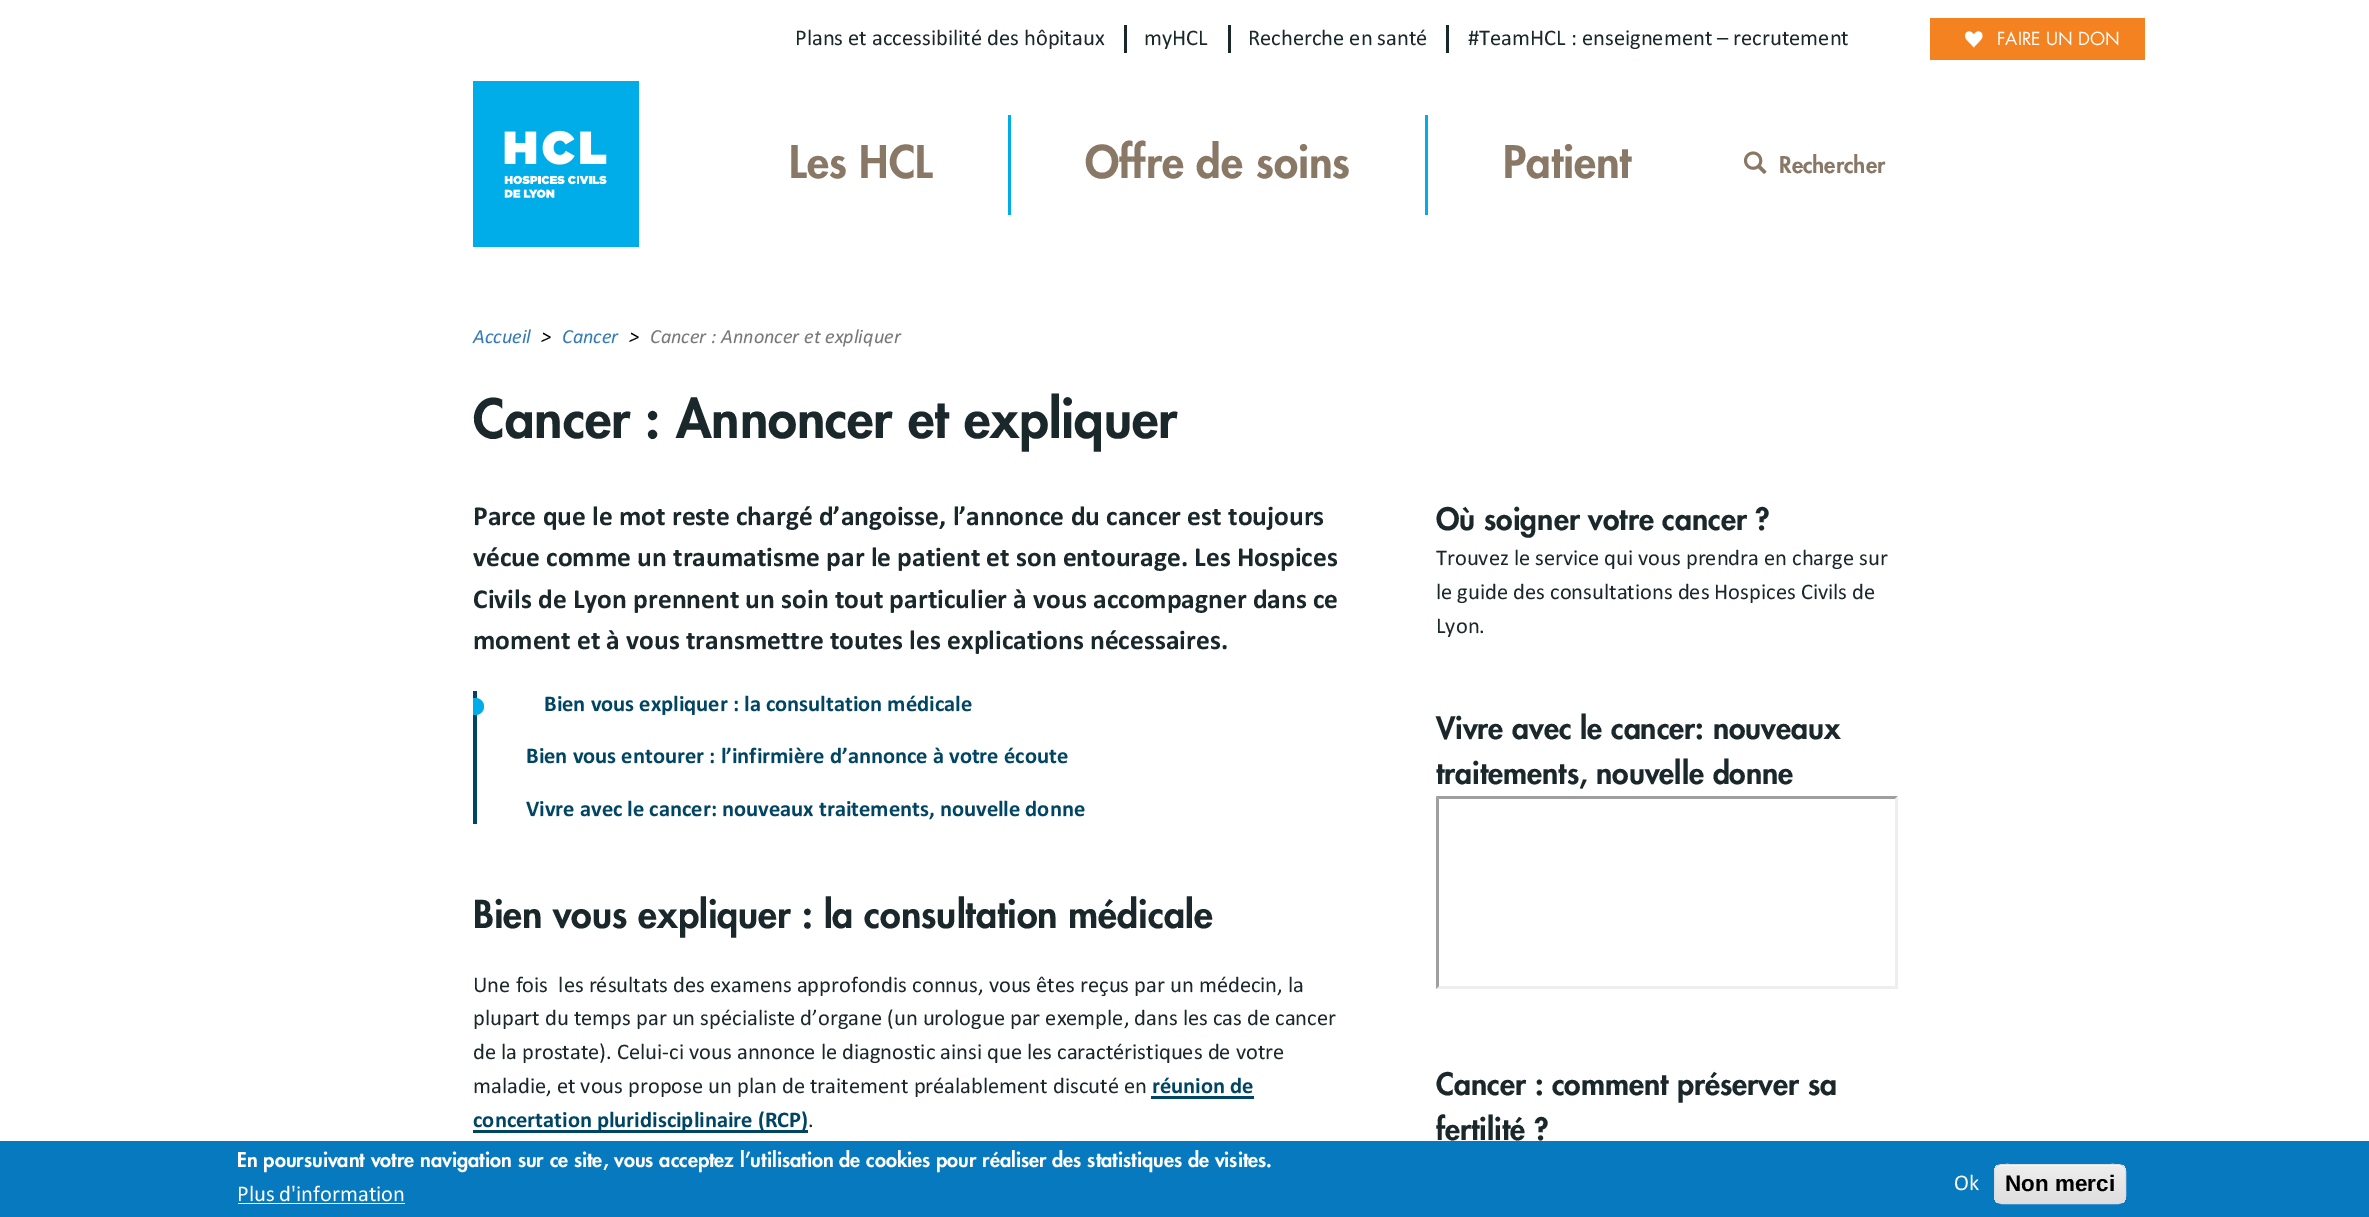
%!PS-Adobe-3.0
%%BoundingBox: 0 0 2369 1217
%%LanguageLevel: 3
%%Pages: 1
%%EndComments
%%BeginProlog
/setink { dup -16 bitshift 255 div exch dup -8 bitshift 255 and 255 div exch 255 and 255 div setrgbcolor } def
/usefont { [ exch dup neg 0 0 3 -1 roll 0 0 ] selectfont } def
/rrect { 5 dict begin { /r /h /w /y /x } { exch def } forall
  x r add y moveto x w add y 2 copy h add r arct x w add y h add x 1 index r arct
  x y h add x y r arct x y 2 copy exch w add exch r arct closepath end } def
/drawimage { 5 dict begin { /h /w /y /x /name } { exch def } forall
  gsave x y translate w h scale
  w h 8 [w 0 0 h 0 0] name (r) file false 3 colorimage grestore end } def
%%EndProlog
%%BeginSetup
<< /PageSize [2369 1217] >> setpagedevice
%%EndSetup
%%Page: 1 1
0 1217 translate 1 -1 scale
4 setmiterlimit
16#FFFFFF setink
0 0 2369 1217 rectfill
16#1A272B setink
1124 25 3 28 rectfill
/Calibri-Regular 22.5 usefont
795 45 moveto (Plans et accessibilité des hôpitaux) show
1228 25 3 28 rectfill
1144 45 moveto (myHCL) show
1446 25 3 28 rectfill
1248 45 moveto (Recherche en santé) show
1468 45 moveto (#TeamHCL : enseignement – recrutement) show
16#F58220 setink
1930 18 215 42 rectfill
(img1.raw) 1965 31 18 17 drawimage
/Futura-Regular 17.5 usefont
16#FFFFFF setink
1997 45 moveto (FAIRE UN DON) show
(img2.raw) 473 81 166 166 drawimage
16#00ADE9 setink
1008 115 3 100 rectfill
/Futura-Black 43.75 usefont
16#8A7866 setink
789 178 moveto (Les HCL) show
16#00ADE9 setink
1425 115 3 100 rectfill
16#8A7866 setink
1085 178 moveto (Offre de soins) show
1503 178 moveto (Patient) show
(img3.raw) 1743 151 24 23 drawimage
/Futura-Black 22.5 usefont
1779 173 moveto (Rechercher) show
/Calibri-Italic 20.25 usefont
16#337AB7 setink
473 343 moveto (Accueil) show
16#000000 setink
541 343 moveto (>) show
16#337AB7 setink
562 343 moveto (Cancer) show
16#000000 setink
629 343 moveto (>) show
16#777777 setink
650 343 moveto (Cancer : Annoncer et expliquer) show
/Futura-Black 52.5 usefont
16#1A272B setink
473 438 moveto (Cancer : Annoncer et expliquer) show
/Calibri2-Regular 27.5 usefont
[
    [(Parce que le mot reste chargé d’angoisse, l’annonce du cancer est toujours) 473 525]
    [(vécue comme un traumatisme par le patient et son entourage. Les Hospices) 473 566]
    [(Civils de Lyon prennent un soin tout particulier à vous accompagner dans ce) 473 608]
    [(moment et à vous transmettre toutes les explications nécessaires.) 473 649]
] { aload pop moveto show } forall
16#004563 setink
473 691 4 133 rectfill
gsave
473 691 888 145 rectclip
16#00ADE9 setink
466 698 18 17 8.5 rrect fill
grestore
/Calibri2-Regular 22.5 usefont
[
    [(Bien vous expliquer : la consultation médicale) 544 711]
    [(Bien vous entourer : l’infirmière d’annonce à votre écoute) 526 763]
    [(Vivre avec le cancer: nouveaux traitements, nouvelle donne) 526 816]
] { aload pop moveto show } forall
/Futura-Black 37.5 usefont
16#1A272B setink
473 928 moveto (Bien vous expliquer : la consultation médicale) show
/Calibri-Regular 22.5 usefont
[
    [(Une fois  les résultats des examens approfondis connus, vous êtes reçus par un médecin, la) 473 992]
    [(plupart du temps par un spécialiste d’organe \(un urologue par exemple, dans les cas de cancer) 473 1025]
    [(de la prostate\). Celui-ci vous annonce le diagnostic ainsi que les caractéristiques de votre) 473 1059]
    [(maladie, et vous propose un plan de traitement préalablement discuté en) 473 1093]
] { aload pop moveto show } forall
/Calibri2-Regular 22.5 usefont
16#004563 setink
1152 1093 moveto (réunion de) show
1151 1096 103 3 rectfill
473 1130 335 3 rectfill
473 1127 moveto (concertation pluridisciplinaire \(RCP\)) show
/Calibri-Regular 22.5 usefont
16#1A272B setink
808 1127 moveto (.) show
/Futura-Black 30 usefont
1436 530 moveto (Où soigner votre cancer ?) show
/Calibri-Regular 22.5 usefont
[
    [(Trouvez le service qui vous prendra en charge sur) 1436 565]
    [(le guide des consultations des Hospices Civils de) 1436 599]
    [(Lyon.) 1436 633]
] { aload pop moveto show } forall
/Futura-Black 30 usefont
1436 739 moveto (Vivre avec le cancer: nouveaux) show
1436 784 moveto (traitements, nouvelle donne) show
16#9F9F9F setink
1436 796 moveto 1898 796 lineto 1895 799 lineto 1439 799 lineto closepath fill
16#EEEEEE setink
1898 796 moveto 1898 989 lineto 1895 986 lineto 1895 799 lineto closepath fill
1898 989 moveto 1436 989 lineto 1439 986 lineto 1895 986 lineto closepath fill
16#9F9F9F setink
1436 989 moveto 1436 796 lineto 1439 799 lineto 1439 986 lineto closepath fill
16#1A272B setink
1436 1095 moveto (Cancer : comment préserver sa) show
1436 1140 moveto (fertilité ?) show
16#0779BF setink
0 1141 2369 76 rectfill
/Futura-Black 20 usefont
16#FFFFFF setink
237 1167 moveto (En poursuivant votre navigation sur ce site, vous acceptez l’utilisation de cookies pour réaliser des statistiques de visites.) show
/Calibri-Regular 22.5 usefont
237 1201 moveto (Plus d'information) show
238 1203 167 1 rectfill
1954 1190 moveto (Ok) show
gsave
1994 1164 132 40 8 rrect clip newpath
gsave 1994 1165 moveto 2126 1165 lineto 2126 1203 lineto 1994 1203 lineto closepath clip newpath
<< /ShadingType 2 /ColorSpace /DeviceRGB /Coords [2060 1165 2060 1203] /Extend [true true] /Function << /FunctionType 3 /Domain [0 1] /Functions [<< /FunctionType 2 /Domain [0 1] /C0 [0.929 0.929 0.929] /C1 [0.929 0.929 0.929] /N 1 >> << /FunctionType 2 /Domain [0 1] /C0 [0.929 0.929 0.929] /C1 [0.875 0.875 0.875] /N 1 >>] /Bounds [0.05] /Encode [0 1 0 1] >> >> shfill grestore
grestore
2001 1166 moveto 2119 1166 lineto 2122 1166 2125 1169 2125 1172 curveto 2125 1160 2105 1165 2099 1165 curveto 2021 1165 lineto 2015 1165 1995 1160 1995 1172 curveto 1995 1169 1998 1166 2001 1166 curveto closepath fill
16#DCDCDC setink
1994.5 1164.5 131 39 7.5 rrect stroke
/LiberationSans-Bold 22.5 usefont
16#000000 setink
2005 1191 moveto (Non merci) show
showpage
%%EOF
